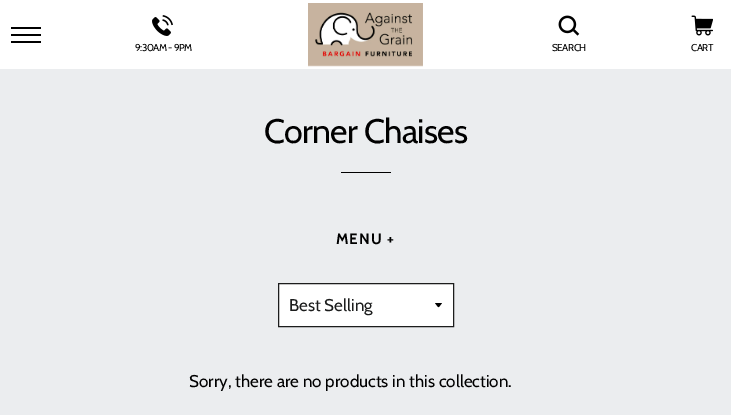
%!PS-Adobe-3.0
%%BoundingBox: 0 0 731 415
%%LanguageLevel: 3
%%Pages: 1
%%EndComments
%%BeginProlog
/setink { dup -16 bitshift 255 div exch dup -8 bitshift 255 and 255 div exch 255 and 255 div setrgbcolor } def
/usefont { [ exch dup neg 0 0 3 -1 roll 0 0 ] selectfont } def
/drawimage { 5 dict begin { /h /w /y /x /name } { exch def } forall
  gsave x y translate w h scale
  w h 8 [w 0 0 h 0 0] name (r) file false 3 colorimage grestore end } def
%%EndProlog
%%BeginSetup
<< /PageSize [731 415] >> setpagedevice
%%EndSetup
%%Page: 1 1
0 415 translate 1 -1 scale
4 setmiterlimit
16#EBEDEF setink
0 0 731 415 rectfill
[
    [0 0 731 69 16#FFFFFF]
    [11 27 30 2 16#000000]
    [11 34 30 2 16#000000]
    [11 41 30 2 16#000000]
] { aload pop setink rectfill } forall
(img1.raw) 152 15 21 21 drawimage
/Cabin-Regular 10 usefont
135 51 moveto -0.5 0 (9:30AM - 9PM) ashow
(img2.raw) 308 3 115 64 drawimage
(img3.raw) 558 15 22 21 drawimage
552 51 moveto -0.5 0 (SEARCH) ashow
(img4.raw) 691 15 22 21 drawimage
691 51 moveto -0.5 0 (CART) ashow
/Cabin-Regular 34 usefont
264 143 moveto -0.75 0 (Corner Chaises) ashow
341 172 50 1 rectfill
/Cabin-Bold 15 usefont
336 244 moveto 1 0 (MENU) ashow
387 244 moveto 1 0 (+) ashow
16#FFFFFF setink
279 284 174 42 rectfill
16#000000 setink
435 303 moveto 439.5 308.5 437.5 308.5 442 303 curveto closepath fill
16#1C1D1D setink
278.5 283.5 175 43 rectstroke
/Cabin-Regular 17 usefont
289 311 moveto (Best Selling) show
16#000000 setink
189 387 moveto (Sorry, there are no products in this collection.) show
showpage
%%EOF
